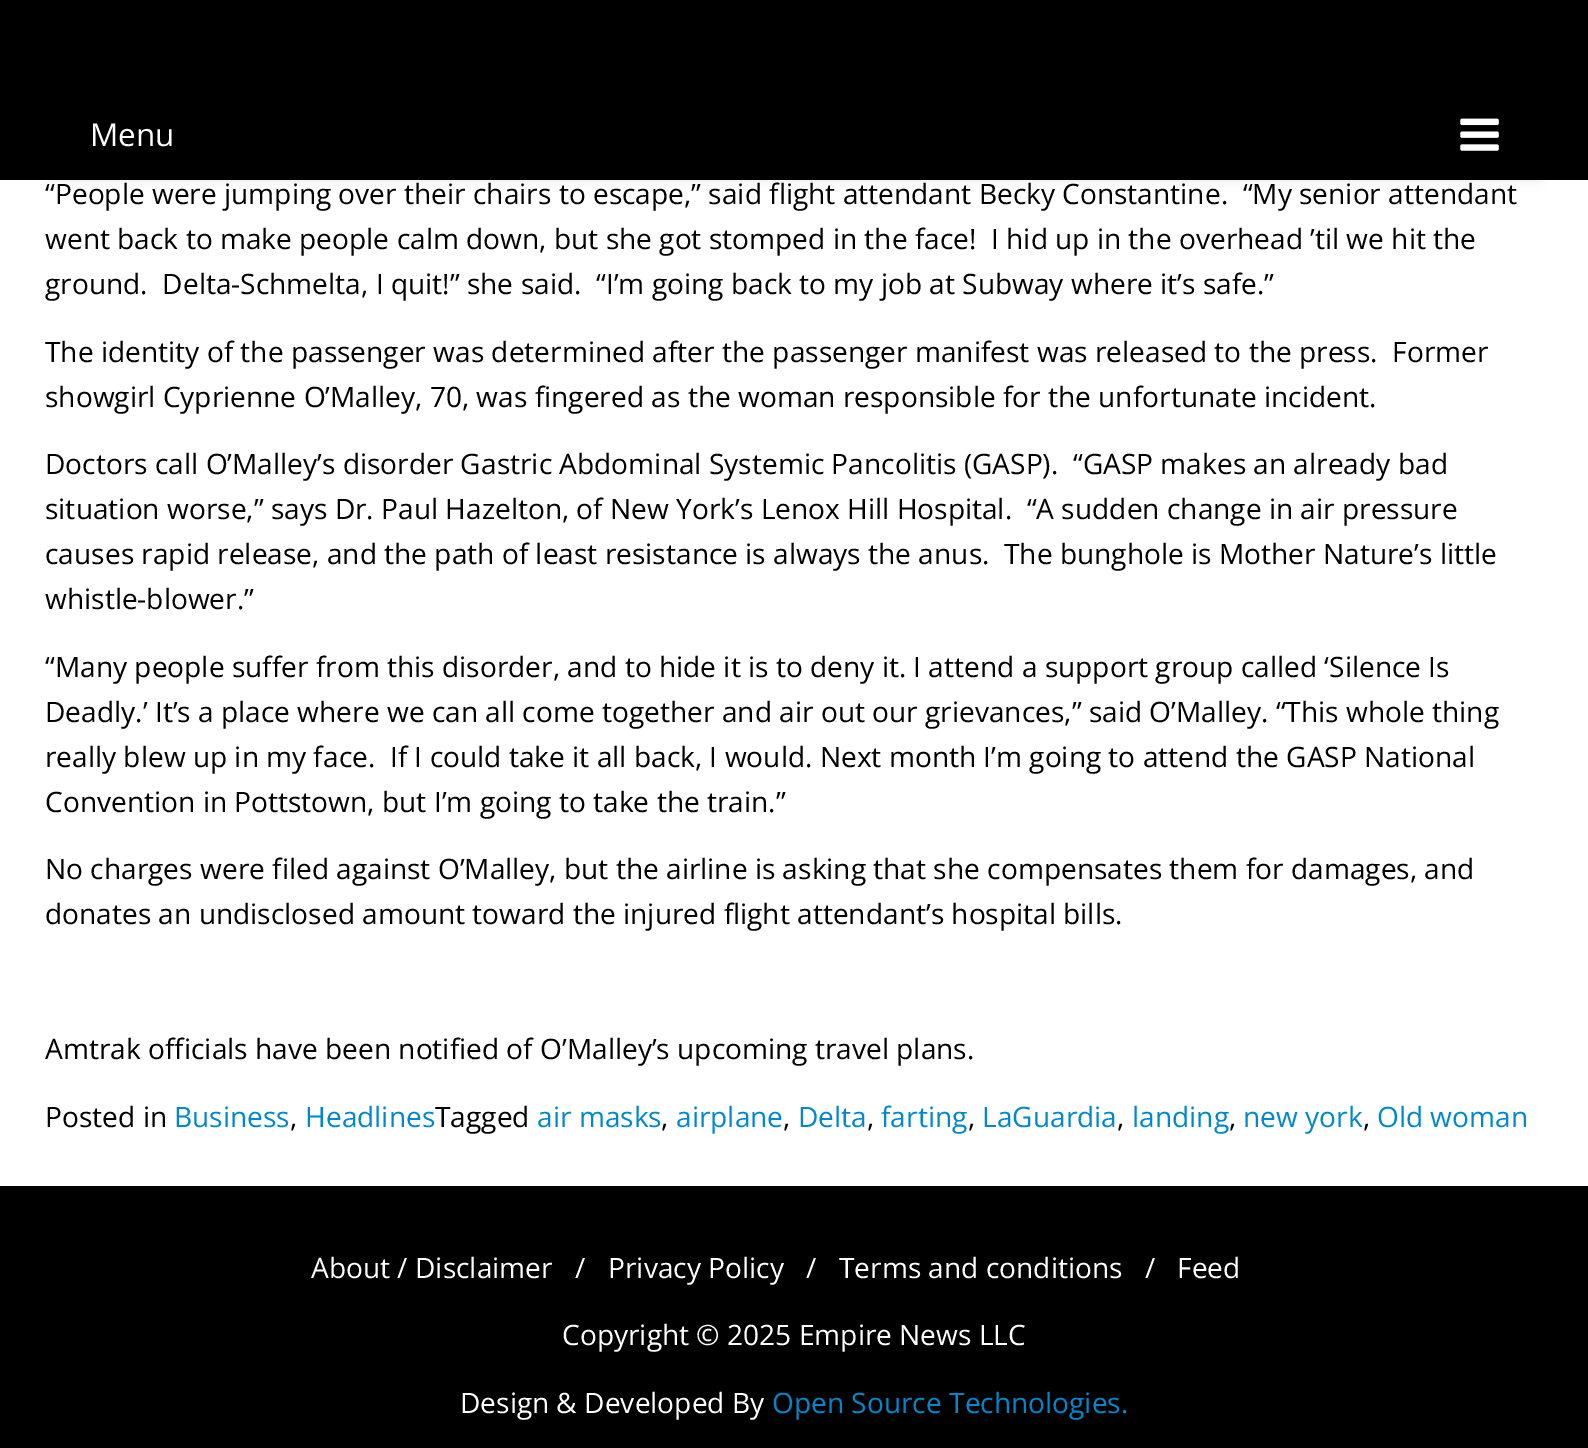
%!PS-Adobe-3.0
%%BoundingBox: 0 0 1588 1448
%%LanguageLevel: 3
%%Pages: 1
%%EndComments
%%BeginProlog
/setink { dup -16 bitshift 255 div exch dup -8 bitshift 255 and 255 div exch 255 and 255 div setrgbcolor } def
/usefont { [ exch dup neg 0 0 3 -1 roll 0 0 ] selectfont } def
/setalpha { dup .setfillconstantalpha .setstrokeconstantalpha } def
/rrect { 5 dict begin { /r /h /w /y /x } { exch def } forall
  x r add y moveto x w add y 2 copy h add r arct x w add y h add x 1 index r arct
  x y h add x y r arct x y 2 copy exch w add exch r arct closepath end } def
/softshadow { 12 dict begin { /a /b /q /h /w /y /x } { exch def } forall gsave /was 0 def
  9 -2 -9 { dup b mul 4 div /e exch def 1 sub .425 mul 2.718 exch exp 1 add a .99 .min exch div /now exch def
    1 1 now sub 1 was sub div sub setalpha /was now def
    w h .min e 2 mul add 0 gt { x e sub y e sub w e 2 mul add h e 2 mul add
      q e add b .6 mul add w h .min 2 div e add .min 0 .max rrect fill } if } for grestore end } def
/drawimage { 5 dict begin { /h /w /y /x /name } { exch def } forall
  gsave x y translate w h scale
  w h 8 [w 0 0 h 0 0] name (r) file false 3 colorimage grestore end } def
%%EndProlog
%%BeginSetup
<< /PageSize [1588 1448] /PageUsesTransparency true >> setpagedevice
%%EndSetup
%%Page: 1 1
0 .pushpdf14devicefilter
0 1448 translate 1 -1 scale
4 setmiterlimit
16#000000 setink
0 0 1588 1448 rectfill
16#FFFFFF setink
0 180 1588 1006 rectfill
gsave
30 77 moveto 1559 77 lineto 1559 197 lineto 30 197 lineto closepath 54 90 moveto 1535 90 lineto 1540 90 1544 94 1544 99 curveto 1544 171 lineto 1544 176 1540 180 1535 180 curveto 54 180 lineto 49 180 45 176 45 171 curveto 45 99 lineto 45 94 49 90 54 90 curveto closepath eoclip newpath
16#000000 setink
45 92 1499 90 9 4.5 0.07 softshadow
grestore
/OpenSans-Regular 31.5 usefont
90 146 moveto (Menu) show
(img1.raw) 1460 118 39 33 drawimage
/OpenSans-Regular 28.12 usefont
16#000000 setink
[
    [(“People were jumping over their chairs to escape,” said flight attendant Becky Constantine.  “My senior attendant) 45 204]
    [(went back to make people calm down, but she got stomped in the face!  I hid up in the overhead ’til we hit the) 45 249]
    [(ground.  Delta-Schmelta, I quit!” she said.  “I’m going back to my job at Subway where it’s safe.”) 45 294]
    [(The identity of the passenger was determined after the passenger manifest was released to the press.  Former) 45 362]
    [(showgirl Cyprienne O’Malley, 70, was fingered as the woman responsible for the unfortunate incident.) 45 407]
    [(Doctors call O’Malley’s disorder Gastric Abdominal Systemic Pancolitis \(GASP\).  “GASP makes an already bad) 45 474]
    [(situation worse,” says Dr. Paul Hazelton, of New York’s Lenox Hill Hospital.  “A sudden change in air pressure) 45 519]
    [(causes rapid release, and the path of least resistance is always the anus.  The bunghole is Mother Nature’s little) 45 564]
    [(whistle-blower.”) 45 609]
    [(“Many people suffer from this disorder, and to hide it is to deny it. I attend a support group called ‘Silence Is) 45 677]
    [(Deadly.’ It’s a place where we can all come together and air out our grievances,” said O’Malley. “This whole thing) 45 722]
    [(really blew up in my face.  If I could take it all back, I would. Next month I’m going to attend the GASP National) 45 767]
    [(Convention in Pottstown, but I’m going to take the train.”) 45 812]
    [(No charges were filed against O’Malley, but the airline is asking that she compensates them for damages, and) 45 879]
    [(donates an undisclosed amount toward the injured flight attendant’s hospital bills.) 45 924]
    [(Amtrak officials have been notified of O’Malley’s upcoming travel plans.) 45 1059]
    [(Posted in) 45 1127]
] { aload pop moveto show } forall
16#0088CC setink
174 1127 moveto (Business) show
16#000000 setink
290 1127 moveto (,) show
16#0088CC setink
305 1127 moveto (Headlines) show
16#000000 setink
435 1127 moveto (Tagged) show
16#0088CC setink
537 1127 moveto (air masks) show
16#000000 setink
661 1127 moveto (,) show
16#0088CC setink
676 1127 moveto (airplane) show
16#000000 setink
783 1127 moveto (,) show
16#0088CC setink
798 1127 moveto (Delta) show
16#000000 setink
867 1127 moveto (,) show
16#0088CC setink
881 1127 moveto (farting) show
16#000000 setink
968 1127 moveto (,) show
16#0088CC setink
982 1127 moveto (LaGuardia) show
16#000000 setink
1117 1127 moveto (,) show
16#0088CC setink
1132 1127 moveto (landing) show
16#000000 setink
1229 1127 moveto (,) show
16#0088CC setink
1243 1127 moveto (new york) show
16#000000 setink
1363 1127 moveto (,) show
16#0088CC setink
1377 1127 moveto (Old woman) show
16#FFFFFF setink
[
    [(About / Disclaimer) 311 1278]
    [(/) 575 1278]
    [(Privacy Policy) 608 1278]
    [(/) 806 1278]
    [(Terms and conditions) 839 1278]
    [(/) 1145 1278]
    [(Feed) 1177 1278]
    [(Copyright © 2025 Empire News LLC) 562 1345]
    [(Design & Developed By) 460 1413]
] { aload pop moveto show } forall
16#0088CC setink
772 1413 moveto (Open Source Technologies.) show
.poppdf14devicefilter showpage
%%EOF
